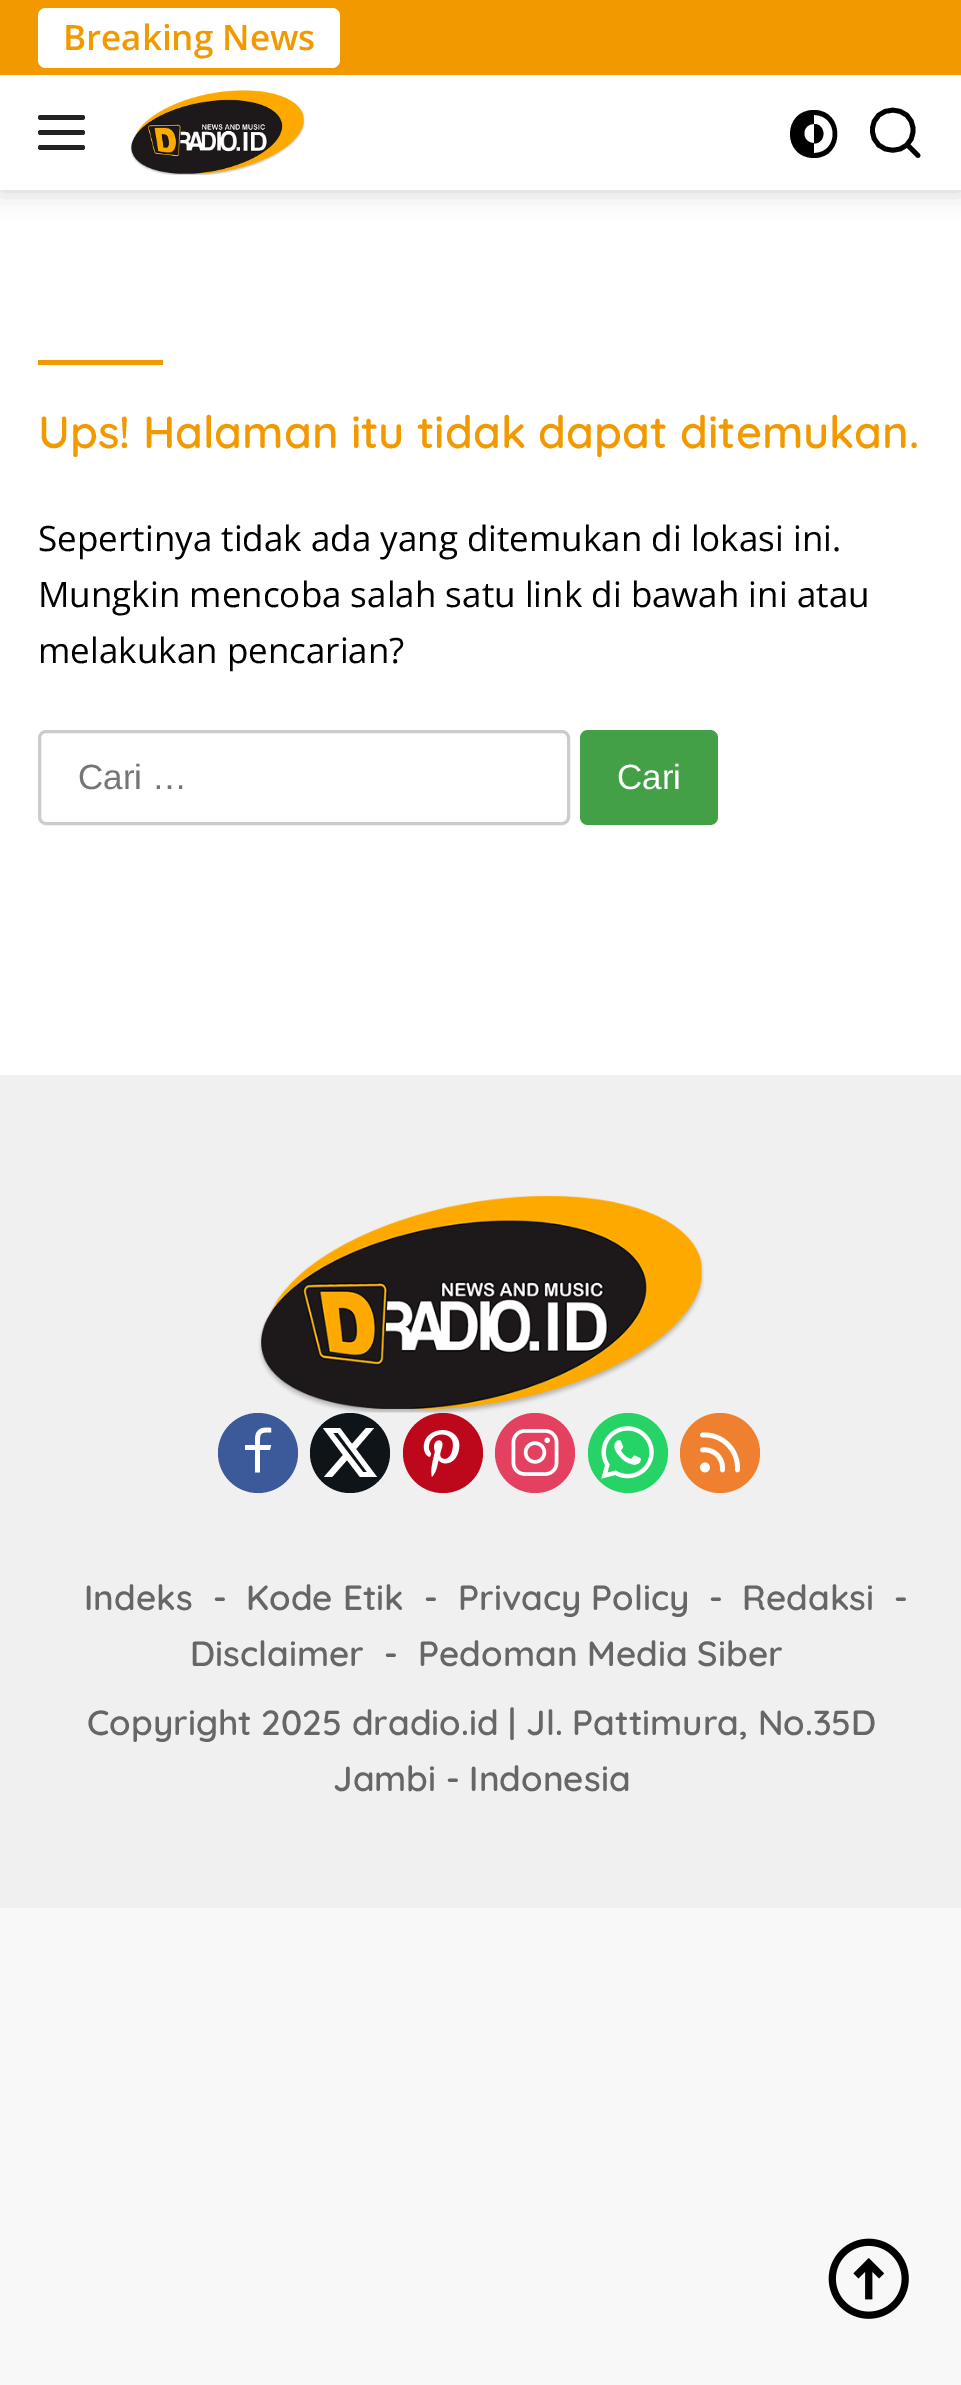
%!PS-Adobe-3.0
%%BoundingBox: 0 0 961 2385
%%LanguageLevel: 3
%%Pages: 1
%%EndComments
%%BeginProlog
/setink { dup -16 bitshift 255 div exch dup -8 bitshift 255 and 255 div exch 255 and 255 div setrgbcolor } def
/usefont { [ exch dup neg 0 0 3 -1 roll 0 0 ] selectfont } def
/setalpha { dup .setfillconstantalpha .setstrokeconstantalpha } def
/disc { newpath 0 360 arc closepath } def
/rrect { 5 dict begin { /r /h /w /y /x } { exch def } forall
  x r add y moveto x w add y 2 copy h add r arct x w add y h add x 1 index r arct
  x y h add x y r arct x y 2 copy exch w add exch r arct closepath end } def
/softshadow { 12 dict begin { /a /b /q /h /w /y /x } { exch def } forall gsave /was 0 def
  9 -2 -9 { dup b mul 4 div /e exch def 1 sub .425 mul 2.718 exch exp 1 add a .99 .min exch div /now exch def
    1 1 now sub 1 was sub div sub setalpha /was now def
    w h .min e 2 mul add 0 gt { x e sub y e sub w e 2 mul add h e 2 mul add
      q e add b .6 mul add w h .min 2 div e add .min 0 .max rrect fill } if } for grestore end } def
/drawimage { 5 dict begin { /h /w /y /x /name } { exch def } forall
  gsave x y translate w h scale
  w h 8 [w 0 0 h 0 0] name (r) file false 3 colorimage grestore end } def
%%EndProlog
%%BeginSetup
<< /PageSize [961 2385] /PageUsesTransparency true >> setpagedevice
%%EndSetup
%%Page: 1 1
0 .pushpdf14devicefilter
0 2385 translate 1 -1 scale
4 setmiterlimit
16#F8F8F8 setink
0 0 961 2385 rectfill
16#FFFFFF setink
0 190 961 885 rectfill
16#000000 setink
0 0 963 190 0 12.5 0.2 softshadow
16#FFFFFF setink
0 75 961 115 rectfill
16#F29900 setink
0 0 961 75 rectfill
16#FFFFFF setink
38 8 302 60 8 rrect fill
/OpenSans-SemiBold 35 usefont
16#F29900 setink
63 50 moveto (Breaking News) show
16#222222 setink
38 115 47 5 2.5 rrect fill
38 130 47 5 2.5 rrect fill
38 145 47 5 2.5 rrect fill
(img1.raw) 130 90 175 85 drawimage
16#000000 setink
814 143.5 moveto 826.5 143.5 826.5 124 814 124 curveto closepath fill
814 110 moveto 782 110 782 158 814 158 curveto 845 158 845 110 814 110 curveto closepath 814 115 moveto 814 124 lineto 801 124 801 143 814 143 curveto 814 153 lineto 839 153 839 115 814 115 curveto closepath eofill
4.8 setlinewidth
1 setlinecap
918 155.5 moveto 907 144.5 lineto 913 130 moveto 913 157 872.5 157 872.5 130 curveto 872.5 103.5 913 103.5 913 130 curveto closepath stroke
16#F29900 setink
38 360 125 5 rectfill
/Quicksand-SemiBold 45 usefont
38 448 moveto (Ups! Halaman itu tidak dapat ditemukan.) show
/OpenSans-Regular 35 usefont
16#000000 setink
[
    [(Sepertinya tidak ada yang ditemukan di lokasi ini.) 38 551]
    [(Mungkin mencoba salah satu link di bawah ini atau) 38 607]
    [(melakukan pencarian?) 38 663]
] { aload pop moveto show } forall
16#CCCCCC setink
3 setlinewidth
0 setlinecap
39.5 731.5 529 92 6.5 rrect stroke
/LiberationSans-Regular 35 usefont
16#757575 setink
78 789 moveto (Cari …) show
16#43A047 setink
580 730 138 95 8 rrect fill
16#FFFFFF setink
617 789 moveto (Cari) show
16#F0F0F0 setink
0 1075 961 833 rectfill
(img2.raw) 258 1195 446 218 drawimage
16#3C5A99 setink
258 1453 40 disc fill
(img3.raw) 245 1427 27 46 drawimage
16#0F1419 setink
350 1453 40 disc fill
16#FFFFFF setink
366 1428 moveto 374 1428 lineto 356 1449 lineto 377 1477 lineto 360 1477 lineto 347 1460 lineto 332 1477 lineto 324 1477 lineto 343 1455 lineto 323 1428 lineto 340 1428 lineto 352 1444 lineto closepath 363 1472 moveto 367 1472 lineto 338 1433 lineto 333 1433 lineto closepath fill
16#BD081C setink
443 1453 40 disc fill
(img4.raw) 423 1430 37 47 drawimage
16#E4405F setink
535 1453 40 disc fill
(img5.raw) 511 1429 48 47 drawimage
16#25D366 setink
628 1453 40 disc fill
(img6.raw) 601 1426 53 53 drawimage
16#EE802F setink
720 1453 40 disc fill
(img7.raw) 700 1432 40 41 drawimage
/Quicksand-SemiBold 35 usefont
16#666666 setink
[
    [(Indeks) 84 1610]
    [(-) 213 1610]
    [(Kode Etik) 246 1610]
    [(-) 424 1610]
    [(Privacy Policy) 458 1610]
    [(-) 709 1610]
    [(Redaksi) 742 1610]
    [(-) 894 1610]
    [(Disclaimer) 190 1666]
    [(-) 384 1666]
    [(Pedoman Media Siber) 418 1666]
    [(Copyright 2025 dradio.id | Jl. Pattimura, No.35D) 87 1735]
    [(Jambi - Indonesia) 333 1791]
] { aload pop moveto show } forall
(img8.raw) 828 2238 81 81 drawimage
.poppdf14devicefilter showpage
%%EOF
